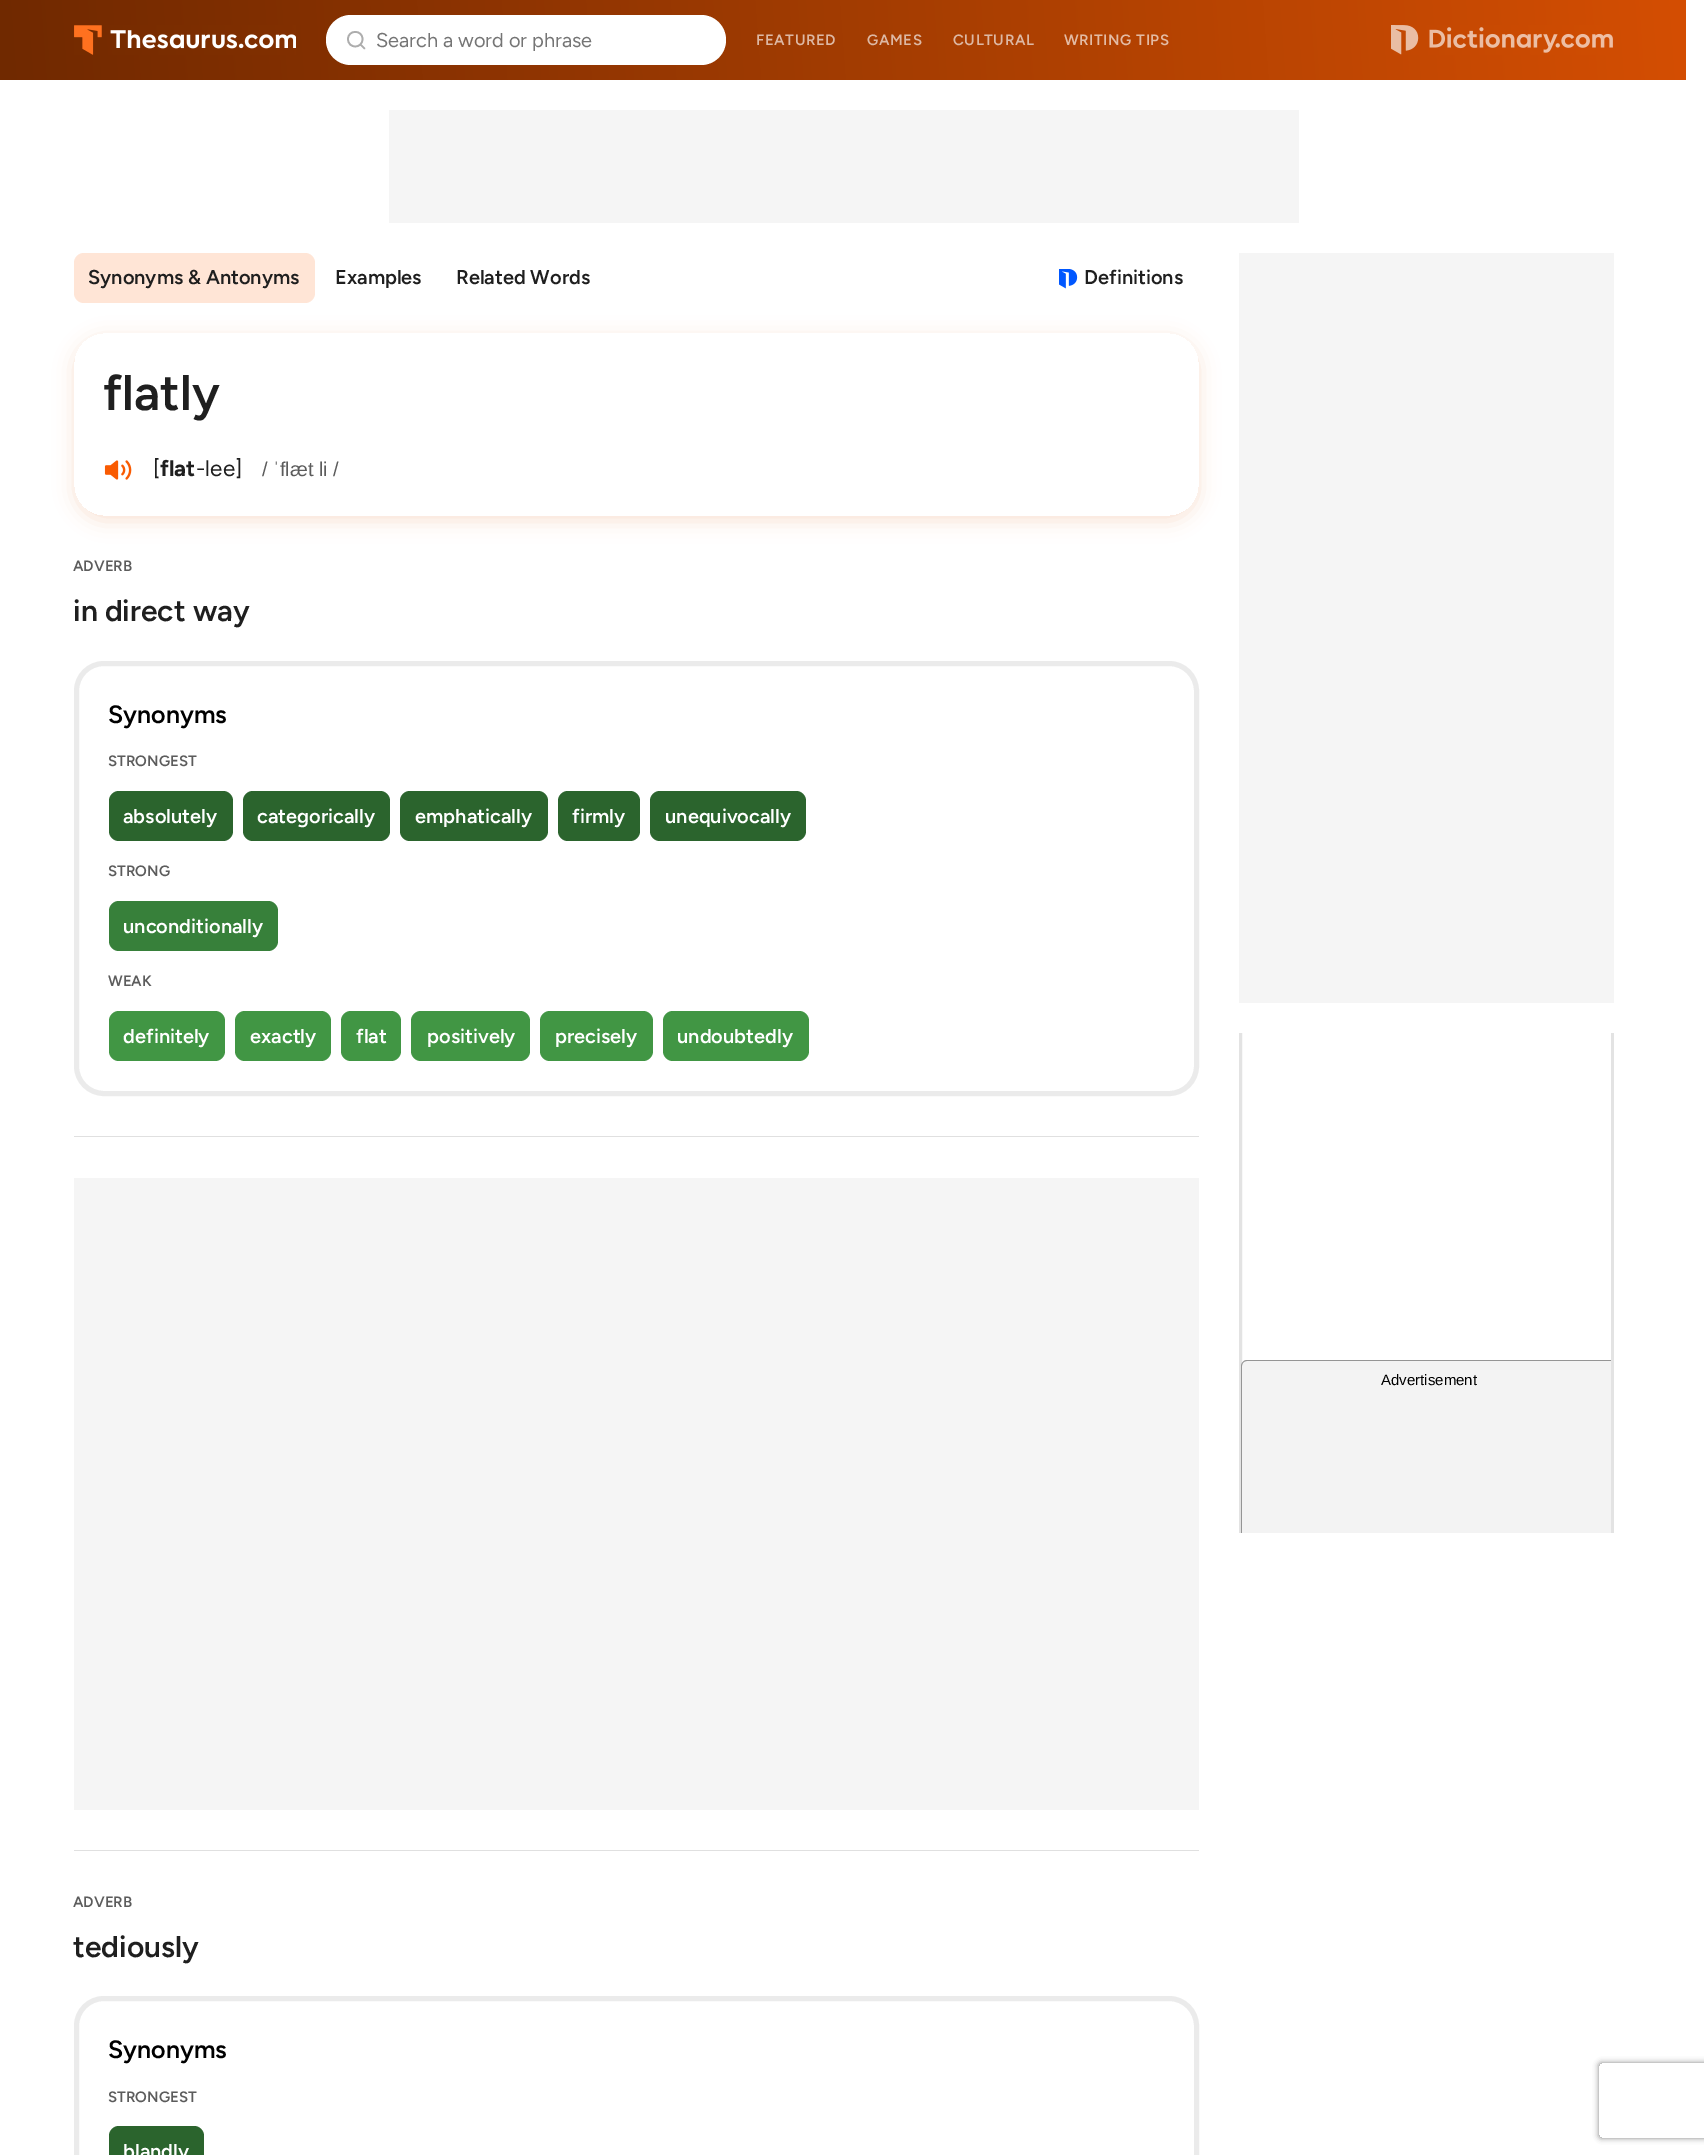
%!PS-Adobe-3.0
%%BoundingBox: 0 0 1704 2155
%%LanguageLevel: 3
%%Pages: 1
%%EndComments
%%BeginProlog
/setink { dup -16 bitshift 255 div exch dup -8 bitshift 255 and 255 div exch 255 and 255 div setrgbcolor } def
/usefont { [ exch dup neg 0 0 3 -1 roll 0 0 ] selectfont } def
/setalpha { dup .setfillconstantalpha .setstrokeconstantalpha } def
/rrect { 5 dict begin { /r /h /w /y /x } { exch def } forall
  x r add y moveto x w add y 2 copy h add r arct x w add y h add x 1 index r arct
  x y h add x y r arct x y 2 copy exch w add exch r arct closepath end } def
/softshadow { 12 dict begin { /a /b /q /h /w /y /x } { exch def } forall gsave /was 0 def
  9 -2 -9 { dup b mul 4 div /e exch def 1 sub .425 mul 2.718 exch exp 1 add a .99 .min exch div /now exch def
    1 1 now sub 1 was sub div sub setalpha /was now def
    w h .min e 2 mul add 0 gt { x e sub y e sub w e 2 mul add h e 2 mul add
      q e add b .6 mul add w h .min 2 div e add .min 0 .max rrect fill } if } for grestore end } def
/drawimage { 5 dict begin { /h /w /y /x /name } { exch def } forall
  gsave x y translate w h scale
  w h 8 [w 0 0 h 0 0] name (r) file false 3 colorimage grestore end } def
%%EndProlog
%%BeginSetup
<< /PageSize [1704 2155] /PageUsesTransparency true >> setpagedevice
%%EndSetup
%%Page: 1 1
0 .pushpdf14devicefilter
0 2155 translate 1 -1 scale
4 setmiterlimit
16#FFFFFF setink
0 0 1704 2155 rectfill
gsave 0 0 moveto 1686 0 lineto 1686 80 lineto 0 80 lineto closepath clip newpath
<< /ShadingType 2 /ColorSpace /DeviceRGB /Coords [1.6 102 1685 -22] /Extend [true true] /Function << /FunctionType 2 /Domain [0 1] /C0 [0.439 0.161 0] /C1 [0.831 0.306 0.008] /N 1 >> >> shfill grestore
(img1.raw) 74 25 222 30 drawimage
326 15 400 50 25 rrect fill
16#ADADAD setink
1.7 setlinewidth
1 setlinecap
1 setlinejoin
364.5 48.5 moveto 360.5 44.5 lineto 362.5 39 moveto 362.5 49 348 49 348 39 curveto 348 29.5 362.5 29.5 362.5 39 curveto closepath stroke
/Figtree-Regular 20 usefont
16#757575 setink
376 47 moveto (Search a word or phrase) show
/Figtree-SemiBold 15 usefont
16#DDB8A4 setink
756 45 moveto 0.6 0 (FEATURED) ashow
867 45 moveto 0.6 0 (GAMES) ashow
953 45 moveto 0.6 0 (CULTURAL) ashow
16#E3BBA4 setink
1064 45 moveto 0.6 0 (WRITING TIPS) ashow
(img2.raw) 1391 25 222 30 drawimage
16#F5F5F5 setink
389 110 910 113 rectfill
16#FFE5D6 setink
74 253 241 50 10 rrect fill
/Figtree-SemiBold 20 usefont
16#1F1F1F setink
[
    [(Synonyms & Antonyms) 88 284]
    [(Examples) 335 284]
    [(Related Words) 456 284]
] { aload pop moveto show } forall
(img3.raw) 1059 269 19 20 drawimage
1084 284 moveto (Definitions) show
gsave
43 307 moveto 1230 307 lineto 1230 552 lineto 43 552 lineto closepath 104 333 moveto 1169 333 lineto 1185.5 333 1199 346.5 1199 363 curveto 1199 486 lineto 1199 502.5 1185.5 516 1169 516 curveto 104 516 lineto 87.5 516 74 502.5 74 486 curveto 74 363 lineto 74 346.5 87.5 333 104 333 curveto closepath eoclip newpath
16#D44E02 setink
74 338 1125 183 30 10 0.16 softshadow
grestore
/Figtree-SemiBold 50 usefont
103 410 moveto (flatly) show
(img4.raw) 104 460 28 20 drawimage
/Figtree-Regular 22.5 usefont
153 476 moveto ([) show
/Figtree-Bold 22.5 usefont
160 476 moveto (flat) show
/Figtree-Regular 22.5 usefont
196 476 moveto (-lee]) show
/LiberationSans-Regular 20 usefont
16#5C5C5C setink
262 476 moveto (/ ˈflæt li /) show
/Figtree-SemiBold 15 usefont
73 571 moveto (ADVERB) show
/Figtree-SemiBold 30 usefont
16#1F1F1F setink
73 621 moveto (in direct way) show
16#EBEBEB setink
5 setlinewidth
0 setlinecap
0 setlinejoin
76.5 663.5 1120 430 27.5 rrect stroke
/Figtree-SemiBold 25 usefont
16#000000 setink
108 723 moveto (Synonyms) show
/Figtree-SemiBold 15 usefont
16#5C5C5C setink
108 766 moveto (STRONGEST) show
16#2B642D setink
109 791 124 50 10 rrect fill
/Figtree-SemiBold 20 usefont
16#FFFFFF setink
123 823 moveto (absolutely) show
16#2B642D setink
243 791 147 50 10 rrect fill
16#FFFFFF setink
257 823 moveto (categorically) show
16#2B642D setink
400 791 148 50 10 rrect fill
16#FFFFFF setink
415 823 moveto (emphatically) show
16#2B642D setink
558 791 82 50 10 rrect fill
16#FFFFFF setink
572 823 moveto (firmly) show
16#2B642D setink
650 791 156 50 10 rrect fill
16#FFFFFF setink
665 823 moveto (unequivocally) show
/Figtree-SemiBold 15 usefont
16#5C5C5C setink
108 876 moveto (STRONG) show
16#37803A setink
109 901 169 50 10 rrect fill
/Figtree-SemiBold 20 usefont
16#FFFFFF setink
123 933 moveto (unconditionally) show
/Figtree-SemiBold 15 usefont
16#5C5C5C setink
108 986 moveto (WEAK) show
16#419644 setink
109 1011 116 50 10 rrect fill
/Figtree-SemiBold 20 usefont
16#FFFFFF setink
123 1043 moveto (definitely) show
16#419644 setink
235 1011 96 50 10 rrect fill
16#FFFFFF setink
250 1043 moveto (exactly) show
16#419644 setink
341 1011 60 50 10 rrect fill
16#FFFFFF setink
356 1043 moveto (flat) show
16#419644 setink
411 1011 119 50 10 rrect fill
16#FFFFFF setink
427 1043 moveto (positively) show
16#419644 setink
540 1011 113 50 10 rrect fill
16#FFFFFF setink
555 1043 moveto (precisely) show
16#419644 setink
663 1011 146 50 10 rrect fill
16#FFFFFF setink
677 1043 moveto (undoubtedly) show
[
    [74 1136 1125 1 16#E0E0E0]
    [74 1178 1125 632 16#F5F5F5]
    [74 1850 1125 1 16#E0E0E0]
] { aload pop setink rectfill } forall
/Figtree-SemiBold 15 usefont
16#5C5C5C setink
73 1907 moveto (ADVERB) show
/Figtree-SemiBold 30 usefont
16#1F1F1F setink
73 1957 moveto (tediously) show
16#EBEBEB setink
76.5 1998.5 1120 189 27.5 rrect stroke
/Figtree-SemiBold 25 usefont
16#000000 setink
108 2058 moveto (Synonyms) show
/Figtree-SemiBold 15 usefont
16#5C5C5C setink
108 2102 moveto (STRONGEST) show
16#2B642D setink
109 2126 95 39 10 rrect fill
/Figtree-SemiBold 20 usefont
16#FFFFFF setink
123 2158 moveto (blandly) show
16#F5F5F5 setink
1239 253 375 750 rectfill
gsave
1239 1033 375 500 rectclip
16#E3E3E3 setink
3 setlinewidth
1240.5 909.5 372 747 11.5 rrect stroke
16#F3F3F3 setink
1247 1360 moveto 1611 1360 lineto 1611 1564 lineto 1241 1564 lineto 1241 1366 lineto 1241 1362.5 1243.5 1360 1247 1360 curveto closepath fill
grestore
gsave
1241 1033 373 500 rectclip
16#959595 setink
1247 1360 moveto 1244 1360 1241 1363 1241 1366 curveto 1241 1645 lineto 1242 1649 lineto 1242 1366 lineto 1242 1363 1244 1361 1247 1361 curveto 1611 1361 lineto 1611 1360 lineto closepath fill
grestore
/LiberationSans-Regular 15 usefont
16#000000 setink
1381 1385 moveto (Advertisement) show
gsave
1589 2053 moveto 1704 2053 lineto 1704 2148 lineto 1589 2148 lineto closepath 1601.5 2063 moveto 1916.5 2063 lineto 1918 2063 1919 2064 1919 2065.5 curveto 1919 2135.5 lineto 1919 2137 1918 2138 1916.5 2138 curveto 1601.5 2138 lineto 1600 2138 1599 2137 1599 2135.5 curveto 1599 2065.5 lineto 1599 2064 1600 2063 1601.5 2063 curveto closepath eoclip newpath
16#808080 setink
1599 2063 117 75 2.5 3 1 softshadow
grestore
.poppdf14devicefilter showpage
%%EOF
